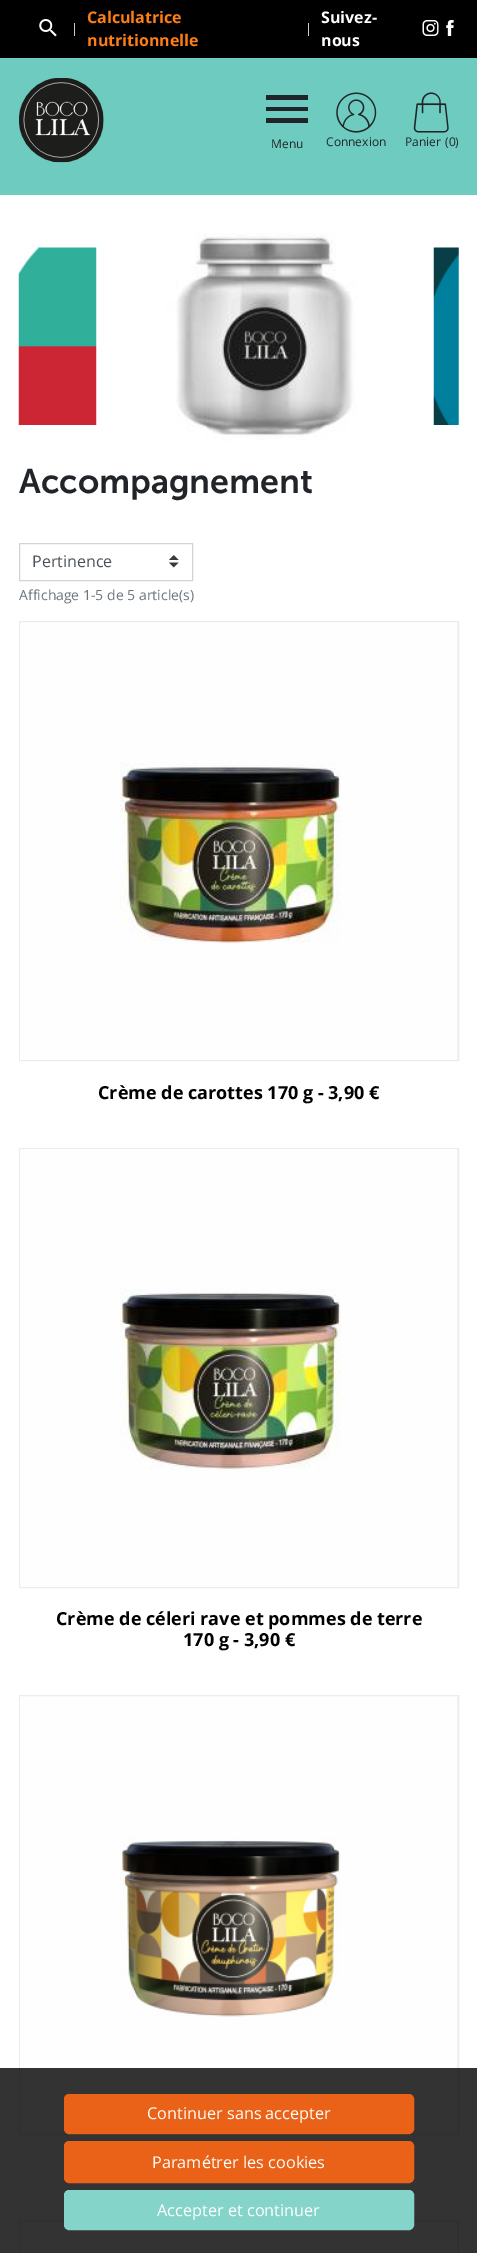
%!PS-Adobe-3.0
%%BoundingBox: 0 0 477 2253
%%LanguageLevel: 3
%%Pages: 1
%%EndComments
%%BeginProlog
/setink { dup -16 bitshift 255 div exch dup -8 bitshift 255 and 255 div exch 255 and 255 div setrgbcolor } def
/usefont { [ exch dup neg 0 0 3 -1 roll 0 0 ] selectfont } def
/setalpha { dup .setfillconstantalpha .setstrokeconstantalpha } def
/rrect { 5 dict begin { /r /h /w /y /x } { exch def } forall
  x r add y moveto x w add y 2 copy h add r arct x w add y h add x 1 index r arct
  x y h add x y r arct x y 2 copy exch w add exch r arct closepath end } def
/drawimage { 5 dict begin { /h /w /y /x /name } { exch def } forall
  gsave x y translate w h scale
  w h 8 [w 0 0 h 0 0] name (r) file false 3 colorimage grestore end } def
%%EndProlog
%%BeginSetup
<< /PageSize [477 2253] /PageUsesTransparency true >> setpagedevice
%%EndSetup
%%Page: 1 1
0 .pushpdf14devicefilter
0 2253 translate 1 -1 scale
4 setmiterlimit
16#FFFFFF setink
0 0 477 2253 rectfill
16#6DCCBF setink
0 58 477 137 rectfill
16#000000 setink
0 0 477 58 rectfill
(img1.raw) 39 19 18 18 drawimage
/OpenSans-Bold 16 usefont
16#FD7E14 setink
87 23 moveto (Calculatrice) show
16#CCCCCC setink
74 23 1 13 rectfill
16#FD7E14 setink
87 46 moveto (nutritionnelle) show
16#CCCCCC setink
308 23 1 13 rectfill
16#FFFFFF setink
321 23 moveto (Suivez-) show
321 46 moveto (nous) show
(img2.raw) 422 20 17 16 drawimage
(img3.raw) 446 20 8 16 drawimage
(img4.raw) 19 78 85 85 drawimage
16#212529 setink
266 95 moveto 308 95 lineto 308 100 lineto 266 100 lineto closepath 266 111 moveto 266 107 lineto 308 107 lineto 308 111 lineto closepath 266 123 moveto 266 118 lineto 308 118 lineto 308 123 lineto closepath fill
/OpenSans-Regular 12 usefont
271 148 moveto (Menu) show
(img5.raw) 336 92 41 41 drawimage
326 146 moveto (Connexion) show
(img6.raw) 413 92 36 41 drawimage
405 146 moveto (Panier) show
445 146 moveto (\(0\)) show
(img7.raw) 18 247 441 178 drawimage
(img8.raw) 96 233 338 208 drawimage
/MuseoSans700-SemiBold 34 usefont
19 493 moveto (Accompagnement) show
(img9.raw) 169 555 10 13 drawimage
16#CED4DA setink
19.5 543.5 173 37 rectstroke
/OpenSans-Regular 16 usefont
16#495057 setink
32 567 moveto (Pertinence) show
/OpenSans-Regular 14 usefont
16#6C757D setink
19 600 moveto (Affichage 1-5 de 5 article\(s\)) show
16#ECECEC setink
19.5 621.5 439 439 rectstroke
16#F3F3F3 setink
457 623 1 437 rectfill
(img10.raw) 20 623 437 437 drawimage
/OpenSans-Bold 18 usefont
16#000000 setink
98 1099 moveto (Crème de carottes 170 g - 3,90 €) show
16#ECECEC setink
19.5 1148.5 439 439 rectstroke
16#F3F3F3 setink
457 1149 1 437 rectfill
(img11.raw) 20 1149 437 437 drawimage
16#000000 setink
56 1625 moveto (Crème de céleri rave et pommes de terre) show
183 1646 moveto (170 g - 3,90 €) show
16#ECECEC setink
19.5 1695.5 439 439 rectstroke
16#F3F3F3 setink
20 1696 438 438 rectfill
(img12.raw) 20 1696 437 438 drawimage
16#ECECEC setink
19.5 2220.5 439 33 rectstroke
16#F2F2F2 setink
457 2221 1 32 rectfill
0.8 setalpha
16#000000 setink
0 2068 477 185 rectfill
1 setalpha
16#E96218 setink
64.5 2094.5 349 39 4.5 rrect gsave fill grestore
stroke
/OpenSans-Regular 16.25 usefont
16#FFFFFF setink
147 2119 moveto (Continuer sans accepter) show
16#E96218 setink
64.5 2141.5 349 41 4.5 rrect gsave fill grestore
stroke
16#FFFFFF setink
152 2168 moveto (Paramétrer les cookies) show
16#84D4C9 setink
64.5 2190.5 349 39 4.5 rrect gsave fill grestore
stroke
16#FFFFFF setink
157 2216 moveto (Accepter et continuer) show
.poppdf14devicefilter showpage
%%EOF
